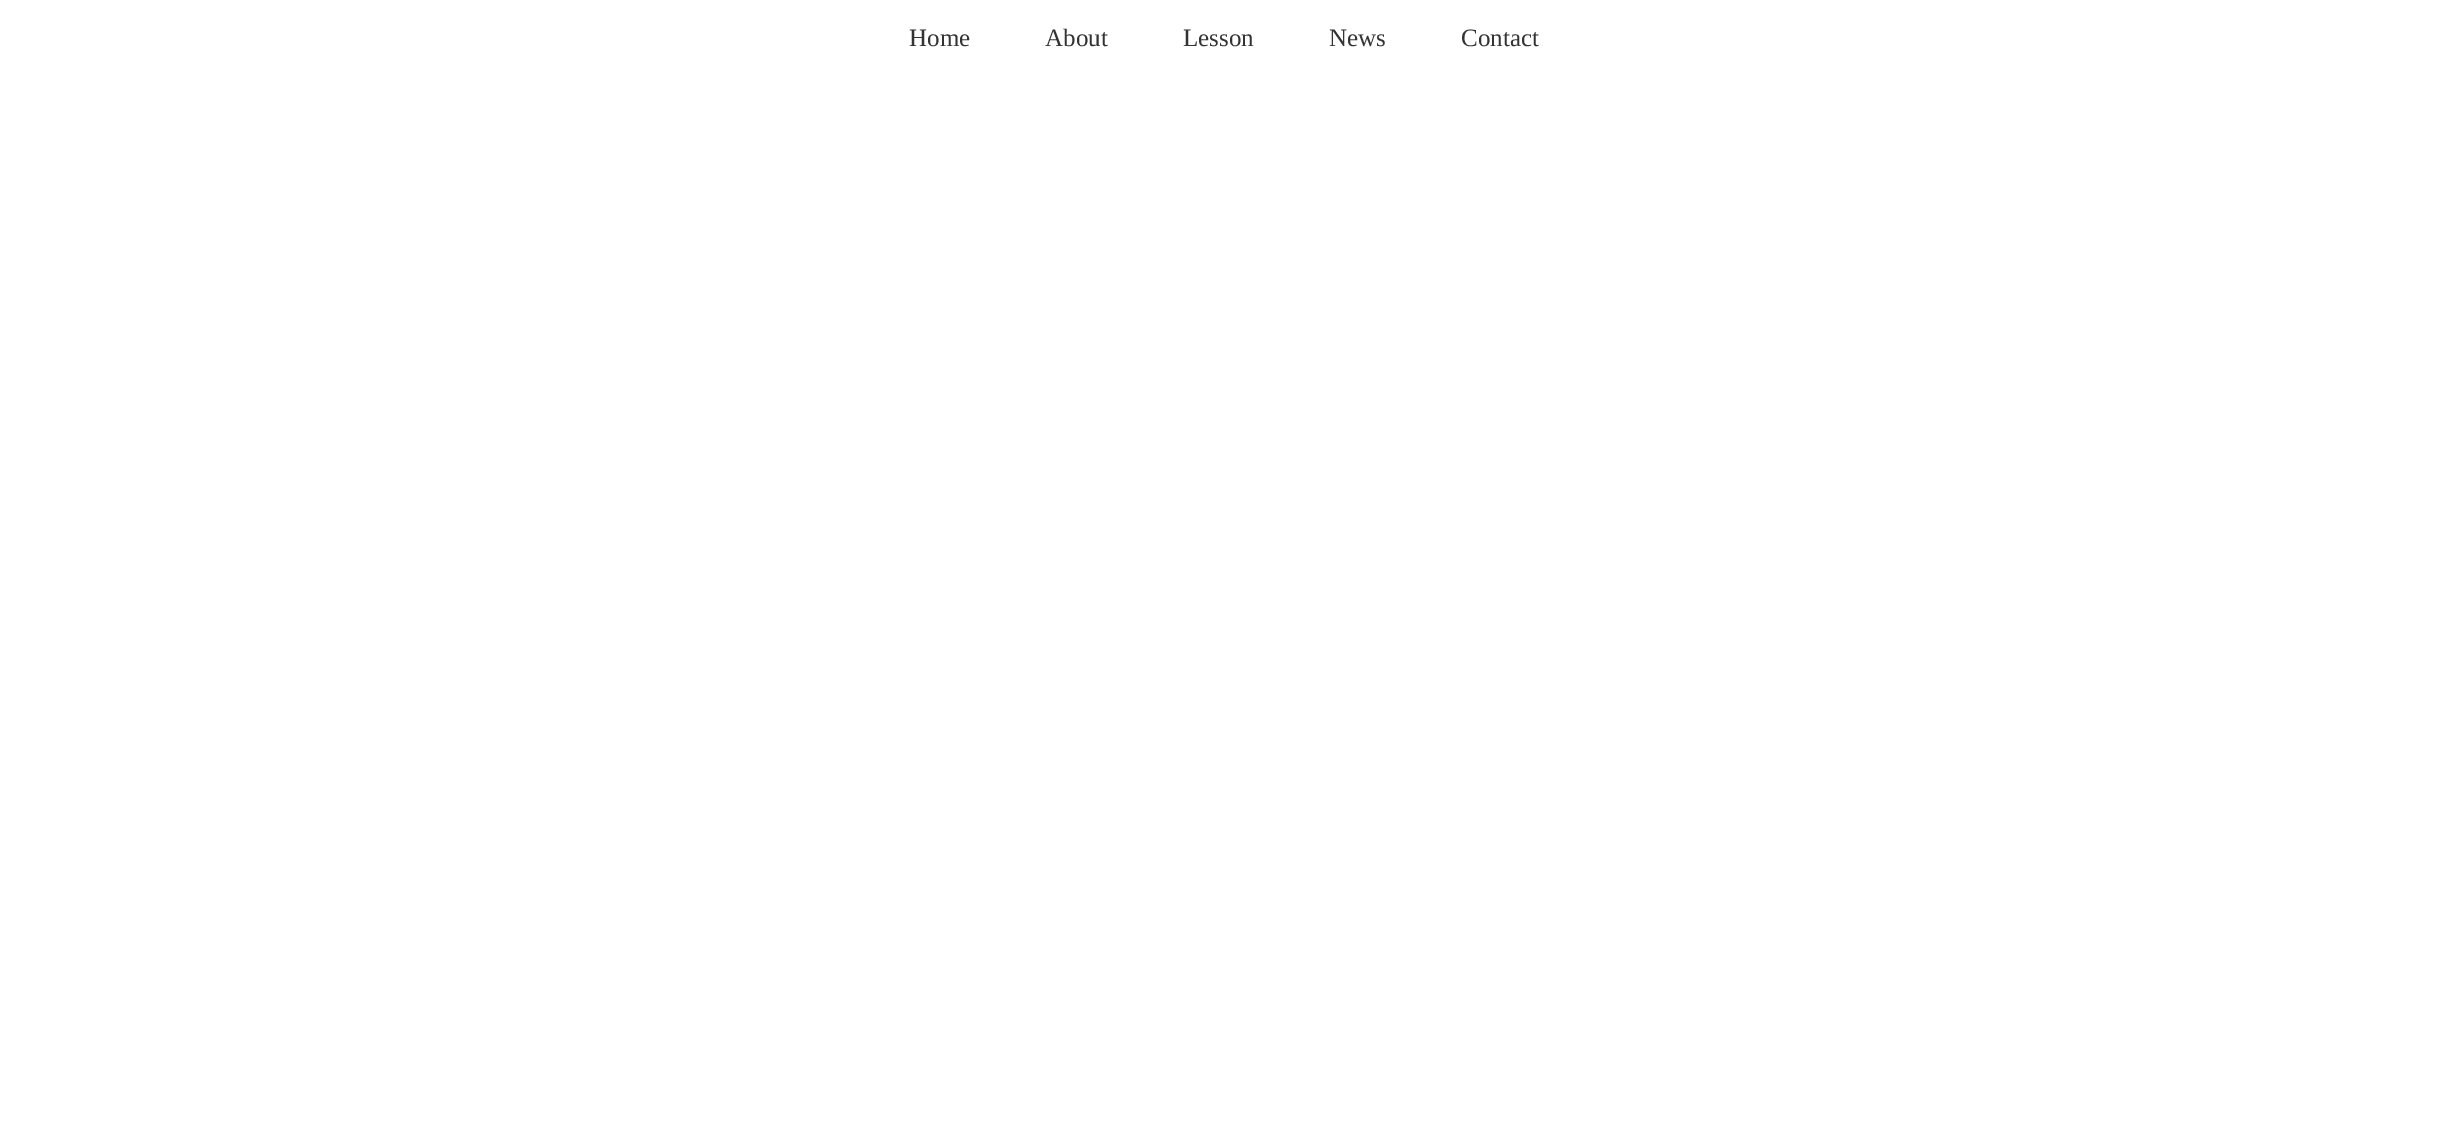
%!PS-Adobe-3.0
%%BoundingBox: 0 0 2447 1135
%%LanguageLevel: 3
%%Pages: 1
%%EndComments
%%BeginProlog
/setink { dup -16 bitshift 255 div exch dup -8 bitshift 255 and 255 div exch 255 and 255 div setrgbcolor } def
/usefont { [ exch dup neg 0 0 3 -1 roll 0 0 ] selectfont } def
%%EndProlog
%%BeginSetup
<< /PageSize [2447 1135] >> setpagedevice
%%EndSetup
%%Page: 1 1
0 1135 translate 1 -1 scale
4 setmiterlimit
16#FFFFFF setink
0 0 2447 1135 rectfill
/LiberationSerif-Regular 25 usefont
16#333333 setink
[
    [(Home) 909 46]
    [(About) 1045 46]
    [(Lesson) 1183 46]
    [(News) 1329 46]
    [(Contact) 1461 46]
] { aload pop moveto show } forall
showpage
%%EOF
